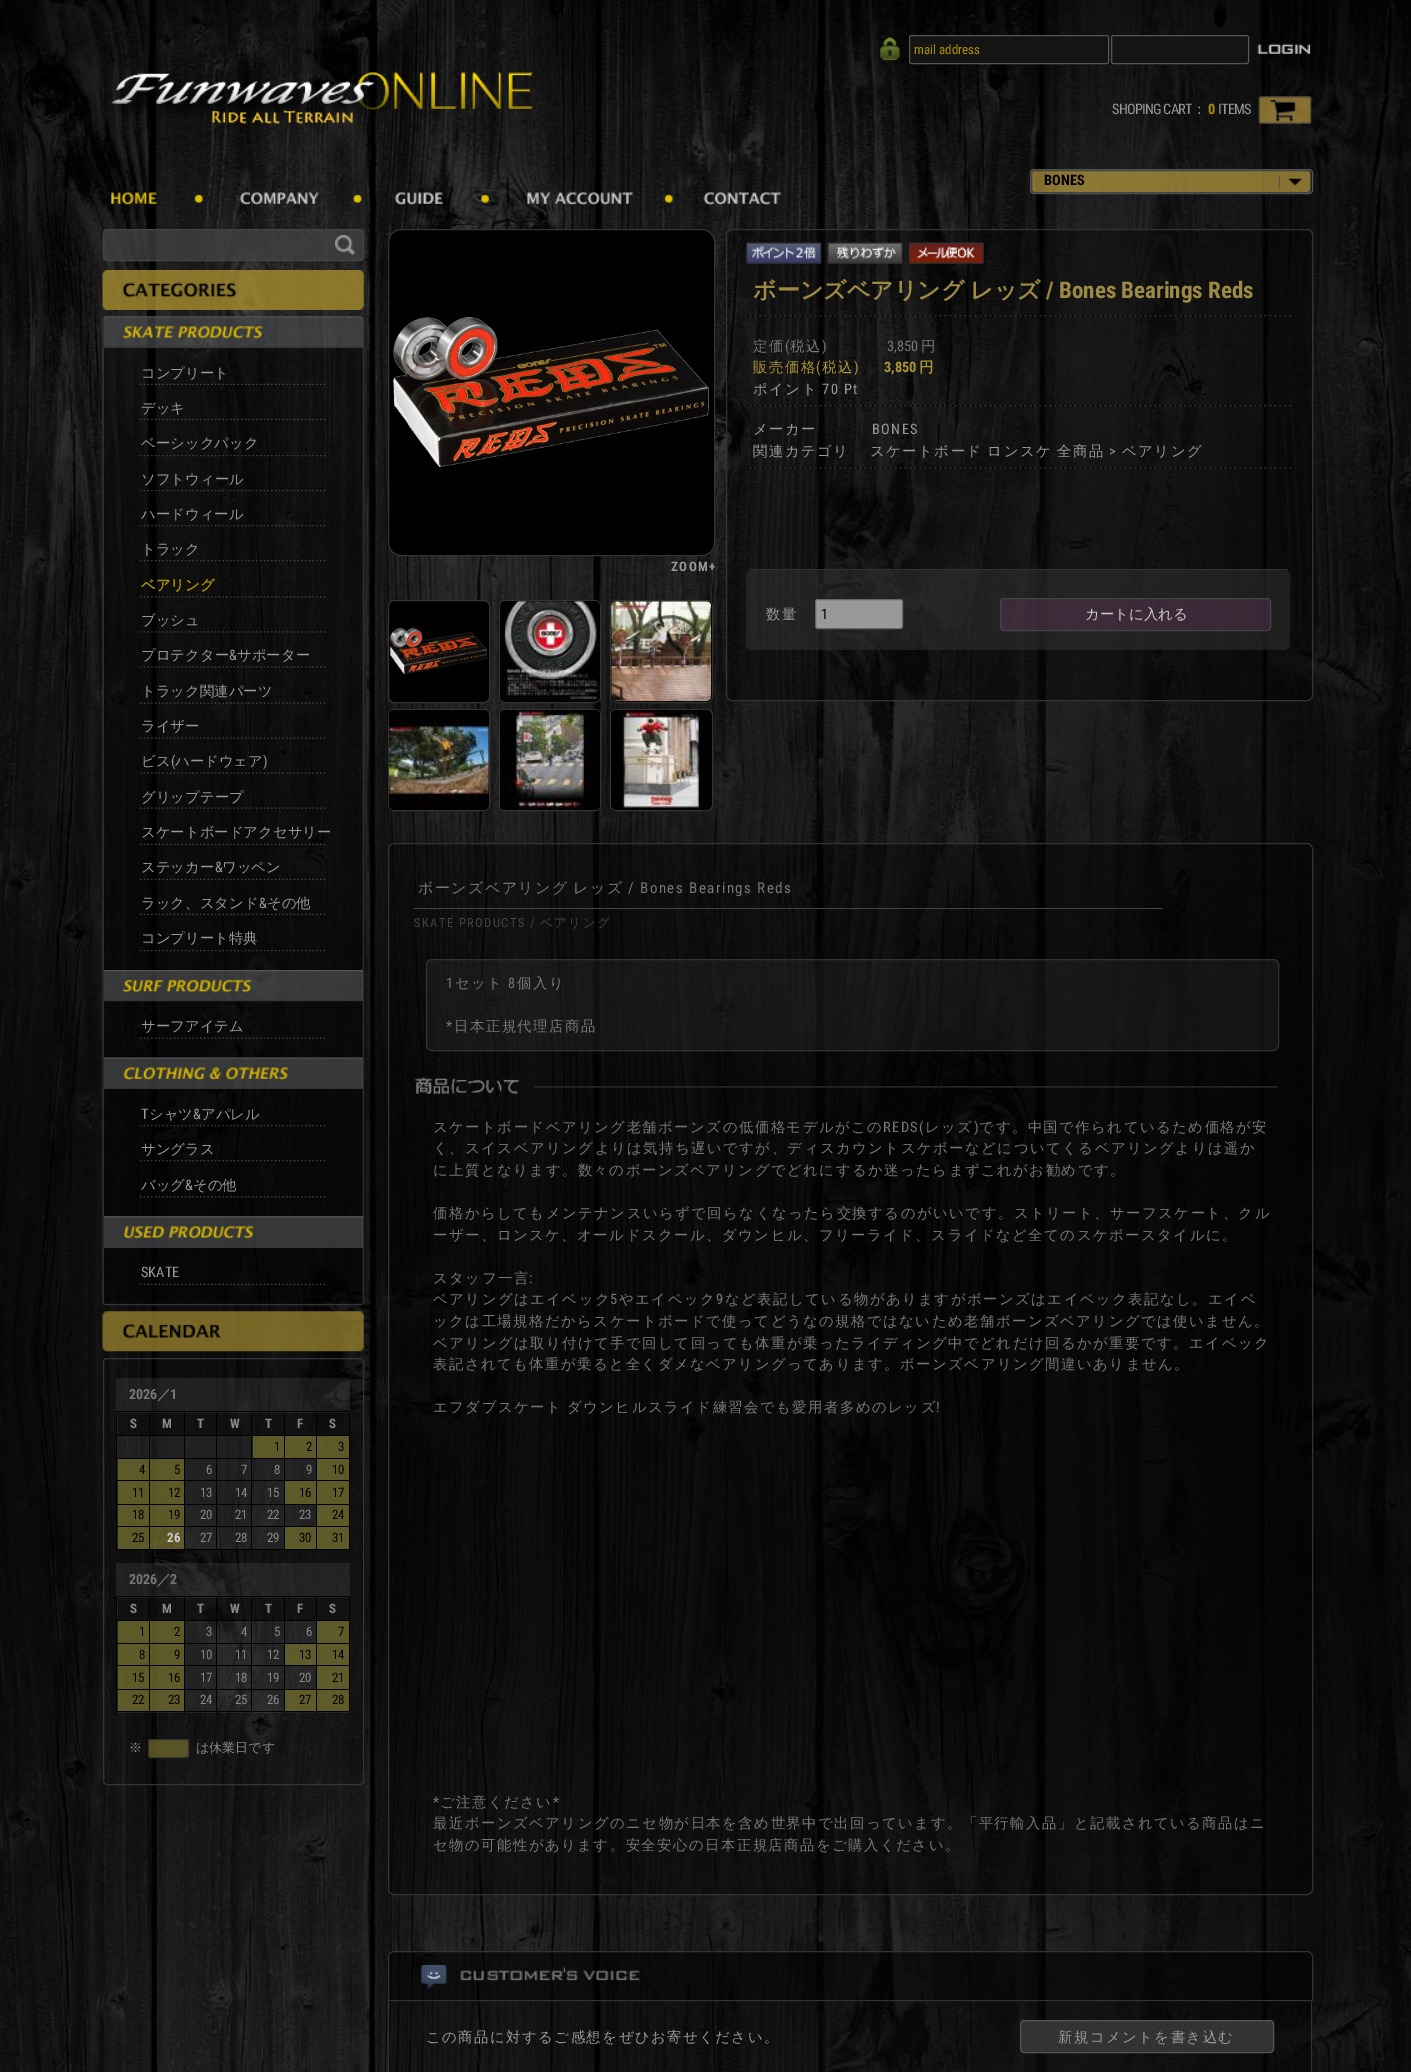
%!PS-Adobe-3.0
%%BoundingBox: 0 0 1411 2072
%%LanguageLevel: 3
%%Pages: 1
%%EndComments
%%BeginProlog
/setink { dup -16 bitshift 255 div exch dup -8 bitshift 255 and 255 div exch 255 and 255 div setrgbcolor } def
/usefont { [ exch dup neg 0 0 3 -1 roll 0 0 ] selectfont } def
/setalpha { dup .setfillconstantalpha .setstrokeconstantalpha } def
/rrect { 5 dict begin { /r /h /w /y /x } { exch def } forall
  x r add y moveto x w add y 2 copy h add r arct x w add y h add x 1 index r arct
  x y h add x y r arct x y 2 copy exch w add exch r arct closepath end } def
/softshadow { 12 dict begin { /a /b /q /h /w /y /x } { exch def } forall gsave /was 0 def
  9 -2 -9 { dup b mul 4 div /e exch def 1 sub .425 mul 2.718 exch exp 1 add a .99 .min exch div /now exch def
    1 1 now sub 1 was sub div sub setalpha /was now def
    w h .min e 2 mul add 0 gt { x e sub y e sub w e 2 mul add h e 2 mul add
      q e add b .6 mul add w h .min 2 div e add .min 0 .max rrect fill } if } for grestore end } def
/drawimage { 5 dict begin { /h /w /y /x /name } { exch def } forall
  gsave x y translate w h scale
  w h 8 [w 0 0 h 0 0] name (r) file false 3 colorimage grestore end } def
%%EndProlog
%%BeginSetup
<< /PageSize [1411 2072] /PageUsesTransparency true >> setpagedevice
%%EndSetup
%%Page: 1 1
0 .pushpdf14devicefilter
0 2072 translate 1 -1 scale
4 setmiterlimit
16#FFFFFF setink
0 0 1411 2072 rectfill
(img1.raw) 0 0 1411 2072 drawimage
(img2.raw) 111 72 422 52 drawimage
(img3.raw) 880 37 20 24 drawimage
16#141414 setink
909.5 35.5 199 28 2 rrect gsave fill grestore
16#555555 setink
stroke
/RobotoCondensed-Regular 13 usefont
16#AA9100 setink
914 54 moveto (mail address) show
16#141414 setink
1111.5 35.5 137 28 2 rrect gsave fill grestore
16#555555 setink
stroke
(img4.raw) 1257 43 54 11 drawimage
/RobotoCondensed-Regular 14.4 usefont
16#999999 setink
1112 114 moveto -0.75 0 (SHOPING CART) ashow
/WenQuanYiZenHei-Medium 14.4 usefont
1192 114 moveto -0.75 0 (：) ashow
/RobotoCondensed-Bold 14.4 usefont
16#AA9100 setink
1208 114 moveto -0.75 0 (0) ashow
/RobotoCondensed-Regular 14.4 usefont
16#999999 setink
1218 114 moveto -0.75 0 (ITEMS) ashow
(img5.raw) 1258 96 54 28 drawimage
16#555555 setink
1030.5 169.5 282 24 3.5 rrect stroke
0.65 setalpha
16#C8A843 setink
1031 170 280 23 4 rrect fill
1 setalpha
(img6.raw) 1278 175 24 14 drawimage
0.99 setalpha
16#414243 setink
1031.5 170.5 279 22 3.5 rrect stroke
/RobotoCondensed-Bold 14.4 usefont
1 setalpha
16#000000 setink
1044 185 moveto (BONES) show
(img7.raw) 111 192 46 14 drawimage
(img8.raw) 194 192 125 14 drawimage
(img9.raw) 353 192 90 14 drawimage
(img10.raw) 481 192 152 14 drawimage
(img11.raw) 664 192 118 14 drawimage
0.7 setalpha
16#464646 setink
103 229 261 32 4 rrect fill
1 setalpha
(img12.raw) 335 235 21 20 drawimage
16#444444 setink
103.5 229.5 260 31 3.5 rrect stroke
(img13.raw) 102 270 262 40 drawimage
16#555555 setink
1.2 setlinewidth
104 318 moveto 106 317 lineto 360 317 lineto 362 318 lineto stroke
0.99 setalpha
16#343537 setink
362 318 moveto 363 320 lineto 363 1301 lineto 363 1303 361.5 1304.5 360 1304.5 curveto 106 1304.5 lineto 104.5 1304.5 103 1303 103 1301 curveto 103 320 lineto 104 318 lineto stroke
0.5 setalpha
16#000000 setink
104 318 259 652 rectfill
0.28 setalpha
16#AFB2B6 setink
104 318 259 30 rectfill
1 setalpha
(img14.raw) 104 326 259 22 drawimage
(img15.raw) 139 383 187 2 drawimage
/WenQuanYiZenHei-Medium 14.4 usefont
16#999999 setink
141 378 moveto (コンプリート) show
(img16.raw) 139 418 187 2 drawimage
141 413 moveto (デッキ) show
(img17.raw) 140 455 186 2 drawimage
141 448 moveto (ベーシックパック) show
(img18.raw) 140 490 186 2 drawimage
141 484 moveto (ソフトウィール) show
(img19.raw) 140 525 186 2 drawimage
141 519 moveto (ハードウィール) show
(img20.raw) 140 560 186 2 drawimage
141 554 moveto (トラック) show
(img21.raw) 140 596 186 2 drawimage
/WenQuanYiZenHei-Bold 14.4 usefont
16#AA9100 setink
141 590 moveto (ベアリング) show
(img22.raw) 140 631 186 2 drawimage
/WenQuanYiZenHei-Medium 14.4 usefont
16#999999 setink
141 625 moveto (ブッシュ) show
(img23.raw) 140 666 186 2 drawimage
141 660 moveto (プロテクター) show
/RobotoCondensed-Regular 14.4 usefont
229 660 moveto (&) show
/WenQuanYiZenHei-Medium 14.4 usefont
237 660 moveto (サポーター) show
(img24.raw) 140 702 186 2 drawimage
141 696 moveto (トラック関連パーツ) show
(img25.raw) 140 737 186 2 drawimage
141 731 moveto (ライザー) show
(img26.raw) 140 772 186 2 drawimage
141 766 moveto (ビス ハードウェア) show
/RobotoCondensed-Regular 14.4 usefont
171 766 moveto (\() show
263 766 moveto (\)) show
(img27.raw) 140 807 186 2 drawimage
/WenQuanYiZenHei-Medium 14.4 usefont
141 802 moveto (グリップテープ) show
(img28.raw) 139 843 187 2 drawimage
141 837 moveto (スケートボードアクセサリー) show
(img29.raw) 139 878 187 2 drawimage
141 872 moveto (ステッカー) show
/RobotoCondensed-Regular 14.4 usefont
215 872 moveto (&) show
/WenQuanYiZenHei-Medium 14.4 usefont
222 872 moveto (ワッペン) show
(img30.raw) 139 913 187 2 drawimage
141 908 moveto (ラック、スタンド) show
/RobotoCondensed-Regular 14.4 usefont
259 908 moveto (&) show
/WenQuanYiZenHei-Medium 14.4 usefont
267 908 moveto (その他) show
(img31.raw) 140 950 186 2 drawimage
141 943 moveto (コンプリート特典) show
0.5 setalpha
16#000000 setink
104 970 259 88 rectfill
0.28 setalpha
16#AFB2B6 setink
104 970 259 31 rectfill
1 setalpha
(img32.raw) 103 970 260 32 drawimage
(img33.raw) 140 1037 186 2 drawimage
16#999999 setink
141 1031 moveto (サーフアイテム) show
0.5 setalpha
16#000000 setink
104 1058 259 158 rectfill
0.28 setalpha
16#AFB2B6 setink
104 1058 259 31 rectfill
1 setalpha
(img34.raw) 103 1057 260 32 drawimage
(img35.raw) 140 1125 186 2 drawimage
/RobotoCondensed-Regular 14.4 usefont
16#999999 setink
141 1119 moveto (T) show
/WenQuanYiZenHei-Medium 14.4 usefont
149 1119 moveto (シャツ) show
/RobotoCondensed-Regular 14.4 usefont
193 1119 moveto (&) show
/WenQuanYiZenHei-Medium 14.4 usefont
201 1119 moveto (アパレル) show
(img36.raw) 140 1160 186 2 drawimage
141 1154 moveto (サングラス) show
(img37.raw) 140 1196 186 2 drawimage
141 1190 moveto (バッグ) show
/RobotoCondensed-Regular 14.4 usefont
185 1190 moveto (&) show
/WenQuanYiZenHei-Medium 14.4 usefont
193 1190 moveto (その他) show
0.5 setalpha
16#000000 setink
104 1216 259 88 rectfill
0.28 setalpha
16#AFB2B6 setink
104 1216 259 32 rectfill
1 setalpha
(img38.raw) 103 1216 260 31 drawimage
(img39.raw) 139 1283 187 2 drawimage
/RobotoCondensed-Regular 14.4 usefont
16#999999 setink
141 1277 moveto (SKATE) show
(img40.raw) 102 1311 262 41 drawimage
0.99 setalpha
16#343537 setink
1 setlinewidth
103.5 1358.5 260 426 3.5 rrect stroke
0.1 setalpha
16#C0C5C0 setink
116 1378 234 171 rectfill
/RobotoCondensed-Bold 14 usefont
1 setalpha
16#777777 setink
129 1399 moveto (2026) show
/WenQuanYiZenHei-Bold 14 usefont
157 1399 moveto (／) show
/RobotoCondensed-Bold 14 usefont
170 1399 moveto (1) show
0.5 setalpha
[
    [118 1413 31 22 16#000000]
] { aload pop setink rectfill } forall
1 setalpha
[
    [316 1411 34 1 16#000000]
    [316 1435 34 1 16#000000]
    [316 1458 34 1 16#000000]
    [316 1480 34 1 16#000000]
    [316 1504 34 1 16#000000]
    [316 1526 34 1 16#000000]
    [349 1526 1 24 16#000000]
    [316 1549 34 1 16#000000]
    [316 1526 1 24 16#000000]
    [284 1526 34 1 16#000000]
    [316 1504 1 24 16#000000]
    [284 1504 34 1 16#000000]
    [316 1480 1 25 16#000000]
    [284 1480 34 1 16#000000]
    [316 1458 1 23 16#000000]
    [284 1458 34 1 16#000000]
    [316 1435 1 24 16#000000]
    [284 1435 34 1 16#000000]
    [316 1411 1 25 16#000000]
    [284 1411 34 1 16#000000]
    [284 1549 34 1 16#000000]
    [284 1526 1 24 16#000000]
    [251 1526 34 1 16#000000]
    [284 1504 1 24 16#000000]
    [251 1504 34 1 16#000000]
    [284 1480 1 25 16#000000]
    [251 1480 34 1 16#000000]
    [284 1458 1 23 16#000000]
    [251 1458 34 1 16#000000]
    [284 1435 1 24 16#000000]
    [251 1435 34 1 16#000000]
    [284 1411 1 25 16#000000]
    [251 1411 34 1 16#000000]
] { aload pop setink rectfill } forall
0.5 setalpha
[
    [218 1413 35 22 16#000000]
] { aload pop setink rectfill } forall
1 setalpha
[
    [251 1549 34 1 16#000000]
    [251 1526 1 24 16#000000]
    [216 1526 37 1 16#000000]
    [251 1504 1 24 16#000000]
    [216 1504 37 1 16#000000]
    [251 1480 1 25 16#000000]
    [216 1480 37 1 16#000000]
    [251 1458 1 23 16#000000]
    [216 1458 37 1 16#000000]
    [251 1435 1 24 16#000000]
    [216 1435 37 1 16#000000]
    [251 1411 1 25 16#000000]
    [216 1411 37 1 16#000000]
] { aload pop setink rectfill } forall
0.5 setalpha
[
    [185 1413 33 22 16#000000]
] { aload pop setink rectfill } forall
1 setalpha
[
    [216 1549 37 1 16#000000]
    [216 1526 1 24 16#000000]
    [184 1526 34 1 16#000000]
    [216 1504 1 24 16#000000]
    [184 1504 34 1 16#000000]
    [216 1480 1 25 16#000000]
    [184 1480 34 1 16#000000]
    [216 1458 1 23 16#000000]
    [184 1458 34 1 16#000000]
    [216 1435 1 24 16#000000]
    [184 1435 34 1 16#000000]
    [216 1411 1 25 16#000000]
    [184 1411 34 1 16#000000]
    [184 1549 34 1 16#000000]
    [184 1526 1 24 16#000000]
    [149 1526 36 1 16#000000]
    [184 1504 1 24 16#000000]
    [149 1504 36 1 16#000000]
    [184 1480 1 25 16#000000]
    [149 1480 36 1 16#000000]
    [184 1458 1 23 16#000000]
    [149 1458 36 1 16#000000]
    [184 1435 1 24 16#000000]
    [149 1435 36 1 16#000000]
    [184 1411 1 25 16#000000]
    [149 1411 36 1 16#000000]
    [149 1549 36 1 16#000000]
    [149 1526 1 24 16#000000]
    [116 1526 34 1 16#000000]
    [149 1504 1 24 16#000000]
    [116 1504 34 1 16#000000]
    [149 1480 1 25 16#000000]
    [116 1480 34 1 16#000000]
    [149 1458 1 23 16#000000]
    [116 1458 34 1 16#000000]
    [149 1435 1 24 16#000000]
    [116 1435 34 1 16#000000]
    [149 1411 1 25 16#000000]
    [116 1411 34 1 16#000000]
    [116 1549 34 1 16#000000]
    [116 1526 1 24 16#000000]
    [116 1504 1 24 16#000000]
    [116 1480 1 25 16#000000]
    [116 1458 1 23 16#000000]
    [116 1435 1 24 16#000000]
    [116 1411 1 25 16#000000]
] { aload pop setink rectfill } forall
/RobotoCondensed-Bold 13 usefont
16#888888 setink
130 1428 moveto (S) show
0.5 setalpha
16#000000 setink
150 1413 34 22 rectfill
1 setalpha
16#888888 setink
[
    [(M) 162 1428]
    [(T) 197 1428]
    [(W) 230 1428]
] { aload pop moveto show } forall
0.5 setalpha
16#000000 setink
253 1413 31 22 rectfill
1 setalpha
16#888888 setink
265 1428 moveto (T) show
0.5 setalpha
16#000000 setink
285 1413 31 22 rectfill
1 setalpha
16#888888 setink
297 1428 moveto (F) show
0.5 setalpha
[
    [317 1413 32 22 16#000000]
] { aload pop setink rectfill } forall
1 setalpha
[
    [349 1504 1 24 16#000000]
    [349 1480 1 25 16#000000]
    [349 1458 1 23 16#000000]
    [349 1435 1 24 16#000000]
    [349 1411 1 25 16#000000]
] { aload pop setink rectfill } forall
16#888888 setink
329 1428 moveto (S) show
0.65 setalpha
16#7E772D setink
253 1436 31 22 rectfill
/RobotoCondensed-Regular 13 usefont
1 setalpha
16#000000 setink
274 1451 moveto (1) show
0.65 setalpha
16#7E772D setink
285 1436 31 22 rectfill
1 setalpha
16#000000 setink
306 1451 moveto (2) show
0.65 setalpha
16#7E772D setink
317 1436 32 22 rectfill
1 setalpha
16#000000 setink
338 1451 moveto (3) show
0.65 setalpha
16#7E772D setink
118 1459 31 21 rectfill
1 setalpha
16#000000 setink
139 1474 moveto (4) show
0.65 setalpha
16#7E772D setink
150 1459 34 21 rectfill
1 setalpha
16#000000 setink
174 1474 moveto (5) show
16#888888 setink
[
    [(6) 206 1474]
    [(7) 241 1474]
    [(8) 274 1474]
    [(9) 306 1474]
] { aload pop moveto show } forall
0.65 setalpha
16#7E772D setink
317 1459 32 21 rectfill
1 setalpha
16#000000 setink
332 1474 moveto (10) show
0.65 setalpha
16#7E772D setink
118 1481 31 23 rectfill
1 setalpha
16#000000 setink
132 1497 moveto (11) show
0.65 setalpha
16#7E772D setink
150 1481 34 23 rectfill
1 setalpha
16#000000 setink
168 1497 moveto (12) show
16#888888 setink
[
    [(13) 200 1497]
    [(14) 235 1497]
    [(15) 267 1497]
] { aload pop moveto show } forall
0.65 setalpha
16#7E772D setink
285 1481 31 23 rectfill
1 setalpha
16#000000 setink
299 1497 moveto (16) show
0.65 setalpha
16#7E772D setink
317 1481 32 23 rectfill
1 setalpha
16#000000 setink
332 1497 moveto (17) show
0.65 setalpha
16#7E772D setink
118 1505 31 21 rectfill
1 setalpha
16#000000 setink
132 1519 moveto (18) show
0.65 setalpha
16#7E772D setink
150 1505 34 21 rectfill
1 setalpha
16#000000 setink
168 1519 moveto (19) show
16#888888 setink
[
    [(20) 200 1519]
    [(21) 235 1519]
    [(22) 267 1519]
    [(23) 299 1519]
] { aload pop moveto show } forall
0.65 setalpha
16#7E772D setink
317 1505 32 21 rectfill
1 setalpha
16#000000 setink
332 1519 moveto (24) show
0.65 setalpha
16#7E772D setink
118 1527 31 22 rectfill
1 setalpha
16#000000 setink
132 1542 moveto (25) show
0.65 setalpha
16#7E772D setink
150 1527 34 22 rectfill
/RobotoCondensed-Bold 13 usefont
1 setalpha
16#CCCCCC setink
167 1542 moveto (26) show
/RobotoCondensed-Regular 13 usefont
16#888888 setink
[
    [(27) 200 1542]
    [(28) 235 1542]
    [(29) 267 1542]
] { aload pop moveto show } forall
0.65 setalpha
16#7E772D setink
285 1527 31 22 rectfill
1 setalpha
16#000000 setink
299 1542 moveto (30) show
0.65 setalpha
16#7E772D setink
317 1527 32 22 rectfill
1 setalpha
16#000000 setink
332 1542 moveto (31) show
0.1 setalpha
16#C0C5C0 setink
116 1563 234 150 rectfill
/RobotoCondensed-Bold 14 usefont
1 setalpha
16#777777 setink
129 1584 moveto (2026) show
/WenQuanYiZenHei-Bold 14 usefont
157 1584 moveto (／) show
/RobotoCondensed-Bold 14 usefont
170 1584 moveto (2) show
0.5 setalpha
[
    [118 1598 31 22 16#000000]
] { aload pop setink rectfill } forall
1 setalpha
[
    [316 1596 34 1 16#000000]
    [316 1620 34 1 16#000000]
    [316 1643 34 1 16#000000]
    [316 1665 34 1 16#000000]
] { aload pop setink rectfill } forall
0.65 setalpha
[
    [317 1666 32 23 16#7E772D]
] { aload pop setink rectfill } forall
gsave
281 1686 moveto 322 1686 lineto 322 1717 lineto 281 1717 lineto closepath 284 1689 moveto 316 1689 lineto 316 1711 lineto 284 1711 lineto closepath eoclip newpath
1 setalpha
16#000000 setink
285 1690 33 23 0 1 0.3 softshadow
grestore
1 setalpha
[
    [316 1689 34 1 16#000000]
    [349 1689 1 24 16#000000]
    [316 1711 34 1 16#000000]
    [316 1689 1 24 16#000000]
    [284 1689 34 1 16#000000]
    [316 1665 1 25 16#000000]
    [284 1665 34 1 16#000000]
    [316 1643 1 23 16#000000]
    [284 1643 34 1 16#000000]
    [316 1620 1 24 16#000000]
    [284 1620 34 1 16#000000]
    [316 1596 1 25 16#000000]
    [284 1596 34 1 16#000000]
    [284 1711 34 1 16#000000]
    [284 1689 1 24 16#000000]
    [251 1689 34 1 16#000000]
    [284 1665 1 25 16#000000]
    [251 1665 34 1 16#000000]
    [284 1643 1 23 16#000000]
    [251 1643 34 1 16#000000]
    [284 1620 1 24 16#000000]
    [251 1620 34 1 16#000000]
    [284 1596 1 25 16#000000]
    [251 1596 34 1 16#000000]
] { aload pop setink rectfill } forall
0.5 setalpha
[
    [218 1598 35 22 16#000000]
] { aload pop setink rectfill } forall
1 setalpha
[
    [251 1711 34 1 16#000000]
    [251 1689 1 24 16#000000]
    [216 1689 37 1 16#000000]
    [251 1665 1 25 16#000000]
    [216 1665 37 1 16#000000]
    [251 1643 1 23 16#000000]
    [216 1643 37 1 16#000000]
    [251 1620 1 24 16#000000]
    [216 1620 37 1 16#000000]
    [251 1596 1 25 16#000000]
    [216 1596 37 1 16#000000]
] { aload pop setink rectfill } forall
0.5 setalpha
[
    [185 1598 33 22 16#000000]
] { aload pop setink rectfill } forall
1 setalpha
[
    [216 1711 37 1 16#000000]
    [216 1689 1 24 16#000000]
    [184 1689 34 1 16#000000]
    [216 1665 1 25 16#000000]
    [184 1665 34 1 16#000000]
    [216 1643 1 23 16#000000]
    [184 1643 34 1 16#000000]
    [216 1620 1 24 16#000000]
    [184 1620 34 1 16#000000]
    [216 1596 1 25 16#000000]
    [184 1596 34 1 16#000000]
    [184 1711 34 1 16#000000]
    [184 1689 1 24 16#000000]
    [149 1689 36 1 16#000000]
    [184 1665 1 25 16#000000]
    [149 1665 36 1 16#000000]
    [184 1643 1 23 16#000000]
    [149 1643 36 1 16#000000]
    [184 1620 1 24 16#000000]
    [149 1620 36 1 16#000000]
    [184 1596 1 25 16#000000]
    [149 1596 36 1 16#000000]
    [149 1711 36 1 16#000000]
    [149 1689 1 24 16#000000]
    [116 1689 34 1 16#000000]
    [149 1665 1 25 16#000000]
    [116 1665 34 1 16#000000]
    [149 1643 1 23 16#000000]
    [116 1643 34 1 16#000000]
    [149 1620 1 24 16#000000]
    [116 1620 34 1 16#000000]
    [149 1596 1 25 16#000000]
    [116 1596 34 1 16#000000]
    [116 1711 34 1 16#000000]
    [116 1689 1 24 16#000000]
    [116 1665 1 25 16#000000]
    [116 1643 1 23 16#000000]
    [116 1620 1 24 16#000000]
    [116 1596 1 25 16#000000]
] { aload pop setink rectfill } forall
/RobotoCondensed-Bold 13 usefont
16#888888 setink
130 1613 moveto (S) show
0.5 setalpha
16#000000 setink
150 1598 34 22 rectfill
1 setalpha
16#888888 setink
[
    [(M) 162 1613]
    [(T) 197 1613]
    [(W) 230 1613]
] { aload pop moveto show } forall
0.5 setalpha
16#000000 setink
253 1598 31 22 rectfill
1 setalpha
16#888888 setink
265 1613 moveto (T) show
0.5 setalpha
16#000000 setink
285 1598 31 22 rectfill
1 setalpha
16#888888 setink
297 1613 moveto (F) show
0.5 setalpha
[
    [317 1598 32 22 16#000000]
] { aload pop setink rectfill } forall
1 setalpha
[
    [349 1665 1 25 16#000000]
    [349 1643 1 23 16#000000]
    [349 1620 1 24 16#000000]
    [349 1596 1 25 16#000000]
] { aload pop setink rectfill } forall
16#888888 setink
329 1613 moveto (S) show
0.65 setalpha
16#7E772D setink
118 1621 31 22 rectfill
/RobotoCondensed-Regular 13 usefont
1 setalpha
16#000000 setink
139 1636 moveto (1) show
0.65 setalpha
16#7E772D setink
150 1621 34 22 rectfill
1 setalpha
16#000000 setink
174 1636 moveto (2) show
16#888888 setink
[
    [(3) 206 1636]
    [(4) 241 1636]
    [(5) 274 1636]
    [(6) 306 1636]
] { aload pop moveto show } forall
0.65 setalpha
16#7E772D setink
317 1621 32 22 rectfill
1 setalpha
16#000000 setink
338 1636 moveto (7) show
0.65 setalpha
16#7E772D setink
118 1644 31 21 rectfill
1 setalpha
16#000000 setink
139 1659 moveto (8) show
0.65 setalpha
16#7E772D setink
150 1644 34 21 rectfill
1 setalpha
16#000000 setink
174 1659 moveto (9) show
16#888888 setink
[
    [(10) 200 1659]
    [(11) 235 1659]
    [(12) 267 1659]
] { aload pop moveto show } forall
0.65 setalpha
16#7E772D setink
285 1644 31 21 rectfill
1 setalpha
16#000000 setink
299 1659 moveto (13) show
0.65 setalpha
16#7E772D setink
317 1644 32 21 rectfill
1 setalpha
16#000000 setink
332 1659 moveto (14) show
0.65 setalpha
16#7E772D setink
118 1666 31 23 rectfill
1 setalpha
16#000000 setink
132 1682 moveto (15) show
0.65 setalpha
16#7E772D setink
150 1666 34 23 rectfill
1 setalpha
16#000000 setink
168 1682 moveto (16) show
16#888888 setink
[
    [(17) 200 1682]
    [(18) 235 1682]
    [(19) 267 1682]
    [(20) 299 1682]
] { aload pop moveto show } forall
16#000000 setink
332 1682 moveto (21) show
0.65 setalpha
16#7E772D setink
118 1690 31 21 rectfill
1 setalpha
16#000000 setink
132 1704 moveto (22) show
0.65 setalpha
16#7E772D setink
150 1690 34 21 rectfill
1 setalpha
16#000000 setink
168 1704 moveto (23) show
16#888888 setink
[
    [(24) 200 1704]
    [(25) 235 1704]
    [(26) 267 1704]
] { aload pop moveto show } forall
0.65 setalpha
16#7E772D setink
285 1690 31 21 rectfill
1 setalpha
16#000000 setink
299 1704 moveto (27) show
0.65 setalpha
16#7E772D setink
317 1690 32 21 rectfill
1 setalpha
16#000000 setink
332 1704 moveto (28) show
/WenQuanYiZenHei-Medium 13 usefont
16#888888 setink
129 1752 moveto (※) show
0.65 setalpha
16#7E772D setink
148.5 1739.5 40 18 2 rrect fill
1 setalpha
16#333333 setink
148.5 1739.5 40 18 2 rrect stroke
16#888888 setink
196 1752 moveto (は休業日です) show
16#000000 setink
388.5 229.5 326 326 12.5 rrect gsave fill grestore
16#333333 setink
stroke
(img41.raw) 393 317 316 151 drawimage
/RobotoCondensed-Bold 13 usefont
16#999999 setink
671 571 moveto 1.45 0 (ZOOM+) ashow
16#000000 setink
388.5 600.5 101 102 5.5 rrect gsave fill grestore
16#333333 setink
stroke
(img42.raw) 389 627 98 48 drawimage
16#000000 setink
499.5 600.5 101 102 5.5 rrect gsave fill grestore
16#333333 setink
stroke
(img43.raw) 500 601 100 100 drawimage
16#000000 setink
610.5 600.5 102 102 5.5 rrect gsave fill grestore
16#333333 setink
stroke
(img44.raw) 611 601 101 101 drawimage
16#000000 setink
388.5 709.5 101 101 5.5 rrect gsave fill grestore
16#333333 setink
stroke
(img45.raw) 388 710 101 100 drawimage
499.5 709.5 101 101 5.5 rrect stroke
(img46.raw) 500 710 100 100 drawimage
16#000000 setink
610.5 709.5 102 101 5.5 rrect gsave fill grestore
16#333333 setink
stroke
(img47.raw) 611 710 98 100 drawimage
0.4 setalpha
16#000000 setink
726.5 229.5 586 471 5.5 rrect fill
1 setalpha
16#333333 setink
726.5 229.5 586 471 5.5 rrect stroke
(img48.raw) 746 242 76 22 drawimage
(img49.raw) 827 242 76 22 drawimage
(img50.raw) 908 242 76 22 drawimage
(img51.raw) 746 315 547 2 drawimage
/WenQuanYiZenHei-Bold 23 usefont
16#9D8A43 setink
753 298 moveto (ボーンズベアリング) show
970 298 moveto (レッズ) show
/RobotoCondensed-Bold 23 usefont
1046 298 moveto (/ Bones Bearings Reds) show
/WenQuanYiZenHei-Medium 14.4 usefont
16#777777 setink
753 351 moveto 1.45 0 (定価 税込) ashow
/RobotoCondensed-Regular 14.4 usefont
785 351 moveto 1.45 0 (\() ashow
822 351 moveto 1.45 0 (\)) ashow
887 351 moveto (3,850) show
/WenQuanYiZenHei-Medium 14.4 usefont
921 351 moveto (円) show
16#AD953B setink
753 372 moveto 1.45 0 (販売価格 税込) ashow
/RobotoCondensed-Regular 14.4 usefont
816 372 moveto 1.45 0 (\() ashow
854 372 moveto 1.45 0 (\)) ashow
/RobotoCondensed-Bold 14.4 usefont
884 372 moveto (3,850) show
/WenQuanYiZenHei-Bold 14.4 usefont
919 372 moveto (円) show
(img52.raw) 746 405 547 2 drawimage
/WenQuanYiZenHei-Medium 14.4 usefont
16#999999 setink
753 394 moveto 1.45 0 (ポイント) ashow
/RobotoCondensed-Regular 14.4 usefont
822 394 moveto 1.45 0 (70 Pt) ashow
/WenQuanYiZenHei-Medium 14.4 usefont
753 434 moveto 1.45 0 (メーカー) ashow
/RobotoCondensed-Regular 14.4 usefont
872 434 moveto 1.45 0 (BONES) ashow
(img53.raw) 746 467 546 2 drawimage
/WenQuanYiZenHei-Medium 14.4 usefont
753 456 moveto 1.45 0 (関連カテゴリ) ashow
870 456 moveto -1 0 32 1.45 0 (スケートボード ロンスケ 全商品) awidthshow
/RobotoCondensed-Regular 14.4 usefont
1109 456 moveto 1.45 0 (>) ashow
/WenQuanYiZenHei-Medium 14.4 usefont
1122 456 moveto 1.45 0 (ベアリング) ashow
0.5 setalpha
16#333333 setink
752 570 moveto 1284 570 lineto 1287 570 1290 572 1290 575 curveto 1290 644 lineto 1290 647 1287 650 1284 650 curveto 752 650 lineto 749 650 746 647 746 644 curveto 746 575 lineto 746 572 749 570 752 570 curveto closepath fill
1 setalpha
750 569 538 1 rectfill
16#999999 setink
766 619 moveto 1.45 0 (数量) ashow
815.5 599.5 87 29 2 rrect gsave fill grestore
16#666666 setink
stroke
/RobotoCondensed-Regular 14.4 usefont
16#000000 setink
821 619 moveto (1) show
0.15 setalpha
16#D259B5 setink
1000.5 598.5 270 32 3.5 rrect fill
1 setalpha
16#444444 setink
1000.5 598.5 270 32 3.5 rrect stroke
/WenQuanYiZenHei-Medium 14.4 usefont
16#CCCCCC setink
1085 619 moveto (カートに入れる) show
0.4 setalpha
16#000000 setink
388.5 843.5 924 1051 5.5 rrect fill
1 setalpha
16#333333 setink
388.5 843.5 924 1051 5.5 rrect stroke
16#444444 setink
414 908 749 1 rectfill
/WenQuanYiZenHei-Medium 15 usefont
16#777777 setink
418 893 moveto 1.45 0 (ボーンズベアリング) ashow
573 893 moveto 1.45 0 (レッズ) ashow
/RobotoCondensed-Regular 15 usefont
628 893 moveto 1.45 0 (/ Bones Bearings Reds) ashow
/RobotoCondensed-Regular 12.5 usefont
16#444444 setink
414 927 moveto 1.45 0 (SKATE PRODUCTS /) ashow
/WenQuanYiZenHei-Medium 12.5 usefont
540 927 moveto 1.45 0 (ベアリング) ashow
0.3 setalpha
16#333333 setink
426.5 959.5 852 91 5.5 rrect fill
1 setalpha
426.5 959.5 852 91 5.5 rrect stroke
/RobotoCondensed-Regular 14.4 usefont
16#777777 setink
446 988 moveto 1.45 0 (1) ashow
/WenQuanYiZenHei-Medium 14.4 usefont
455 988 moveto 1.45 0 (セット) ashow
/RobotoCondensed-Regular 14.4 usefont
508 988 moveto 1.45 0 (8) ashow
/WenQuanYiZenHei-Medium 14.4 usefont
517 988 moveto 1.45 0 (個入り) ashow
/RobotoCondensed-Regular 14.4 usefont
446 1031 moveto 1.45 0 (*) ashow
/WenQuanYiZenHei-Medium 14.4 usefont
454 1031 moveto 1.45 0 (日本正規代理店商品) ashow
(img54.raw) 415 1077 863 17 drawimage
433 1132 moveto 1.45 0 (スケートボードベアリング老舗ボーンズの低価格モデルがこの) ashow
/RobotoCondensed-Regular 14.4 usefont
883 1132 moveto 1.45 0 (REDS\() ashow
/WenQuanYiZenHei-Medium 14.4 usefont
925 1132 moveto 1.45 0 (レッズ です。中国で作られているため価格が安) ashow
/RobotoCondensed-Regular 14.4 usefont
974 1132 moveto 1.45 0 (\)) ashow
/WenQuanYiZenHei-Medium 14.4 usefont
433 1153 moveto 1.45 0 (く、スイスベアリングよりは気持ち遅いですが、ディスカウントスケボーなどについてくるベアリングよりは遥か) ashow
433 1175 moveto 1.45 0 (に上質となります。数々のボーンズベアリングでどれにするか迷ったらまずこれがお勧めです。) ashow
433 1218 moveto 1.45 0 (価格からしてもメンテナンスいらずで回らなくなったら交換するのがいいです。ストリート、サーフスケート、クル) ashow
433 1240 moveto 1.45 0 (ーザー、ロンスケ、オールドスクール、ダウンヒル、フリーライド、スライドなど全てのスケボースタイルに。) ashow
433 1283 moveto 1.45 0 (スタッフ一言) ashow
/RobotoCondensed-Regular 14.4 usefont
529 1283 moveto 1.45 0 (:) ashow
/WenQuanYiZenHei-Medium 14.4 usefont
433 1304 moveto 1.45 0 (ベアリングはエイベック) ashow
/RobotoCondensed-Regular 14.4 usefont
610 1304 moveto 1.45 0 (5) ashow
/WenQuanYiZenHei-Medium 14.4 usefont
619 1304 moveto 1.45 0 (やエイベック) ashow
/RobotoCondensed-Regular 14.4 usefont
716 1304 moveto 1.45 0 (9) ashow
/WenQuanYiZenHei-Medium 14.4 usefont
725 1304 moveto 1.45 0 (など表記している物がありますがボーンズはエイベック表記なし。エイベ) ashow
433 1326 moveto 1.45 0 (ックは工場規格だからスケートボードで使ってどうなの規格ではないため老舗ボーンズベアリングでは使いません。) ashow
433 1348 moveto 1.45 0 (ベアリングは取り付けて手で回して回っても体重が乗ったライディング中でどれだけ回るかが重要です。エイベック) ashow
433 1369 moveto 1.45 0 (表記されても体重が乗ると全くダメなベアリングってあります。ボーンズベアリング間違いありません。) ashow
433 1412 moveto -1 0 32 1.45 0 (エフダブスケート ダウンヒルスライド練習会でも愛用者多めのレッズ) awidthshow
/RobotoCondensed-Regular 14.4 usefont
936 1412 moveto 1.45 0 (!) ashow
433 1807 moveto 1.45 0 (*) ashow
/WenQuanYiZenHei-Medium 14.4 usefont
440 1807 moveto 1.45 0 (ご注意ください) ashow
/RobotoCondensed-Regular 14.4 usefont
553 1807 moveto 1.45 0 (*) ashow
/WenQuanYiZenHei-Medium 14.4 usefont
433 1828 moveto 1.45 0 (最近ボーンズベアリングのニセ物が日本を含め世界中で出回っています。「平行輸入品」と記載されている商品はニ) ashow
433 1850 moveto 1.45 0 (セ物の可能性があります。安全安心の日本正規店商品をご購入ください。) ashow
0.6 setalpha
16#000000 setink
394 1951.5 moveto 1307 1951.5 lineto 1310 1951.5 1312.5 1954 1312.5 1957 curveto 1312.5 2000.5 lineto 388.5 2000.5 lineto 388.5 1957 lineto 388.5 1954 391 1951.5 394 1951.5 curveto closepath fill
1 setalpha
16#333333 setink
394 1951.5 moveto 1307 1951.5 lineto 1310 1951.5 1312.5 1954 1312.5 1957 curveto 1312.5 2000.5 lineto 388.5 2000.5 lineto 388.5 1957 lineto 388.5 1954 391 1951.5 394 1951.5 curveto closepath stroke
(img55.raw) 421 1964 219 26 drawimage
0.4 setalpha
16#000000 setink
389 2001 922 71 rectfill
1 setalpha
16#333333 setink
388 2001 moveto 1312 2001 lineto 1312 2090 lineto 1312 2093 1310 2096 1306 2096 curveto 394 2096 lineto 390 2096 388 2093 388 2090 curveto closepath 389 2001 moveto 1311 2001 lineto 1311 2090 lineto 1311 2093 1309 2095 1306 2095 curveto 394 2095 lineto 391 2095 389 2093 389 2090 curveto closepath eofill
16#999999 setink
426 2042 moveto 1.45 0 (この商品に対するご感想をぜひお寄せください。) ashow
16#333333 setink
1020.5 2020.5 253 32 3.5 rrect gsave fill grestore
16#555555 setink
stroke
16#999999 setink
1058 2042 moveto 1.45 0 (新規コメントを書き込む) ashow
.poppdf14devicefilter showpage
%%EOF
